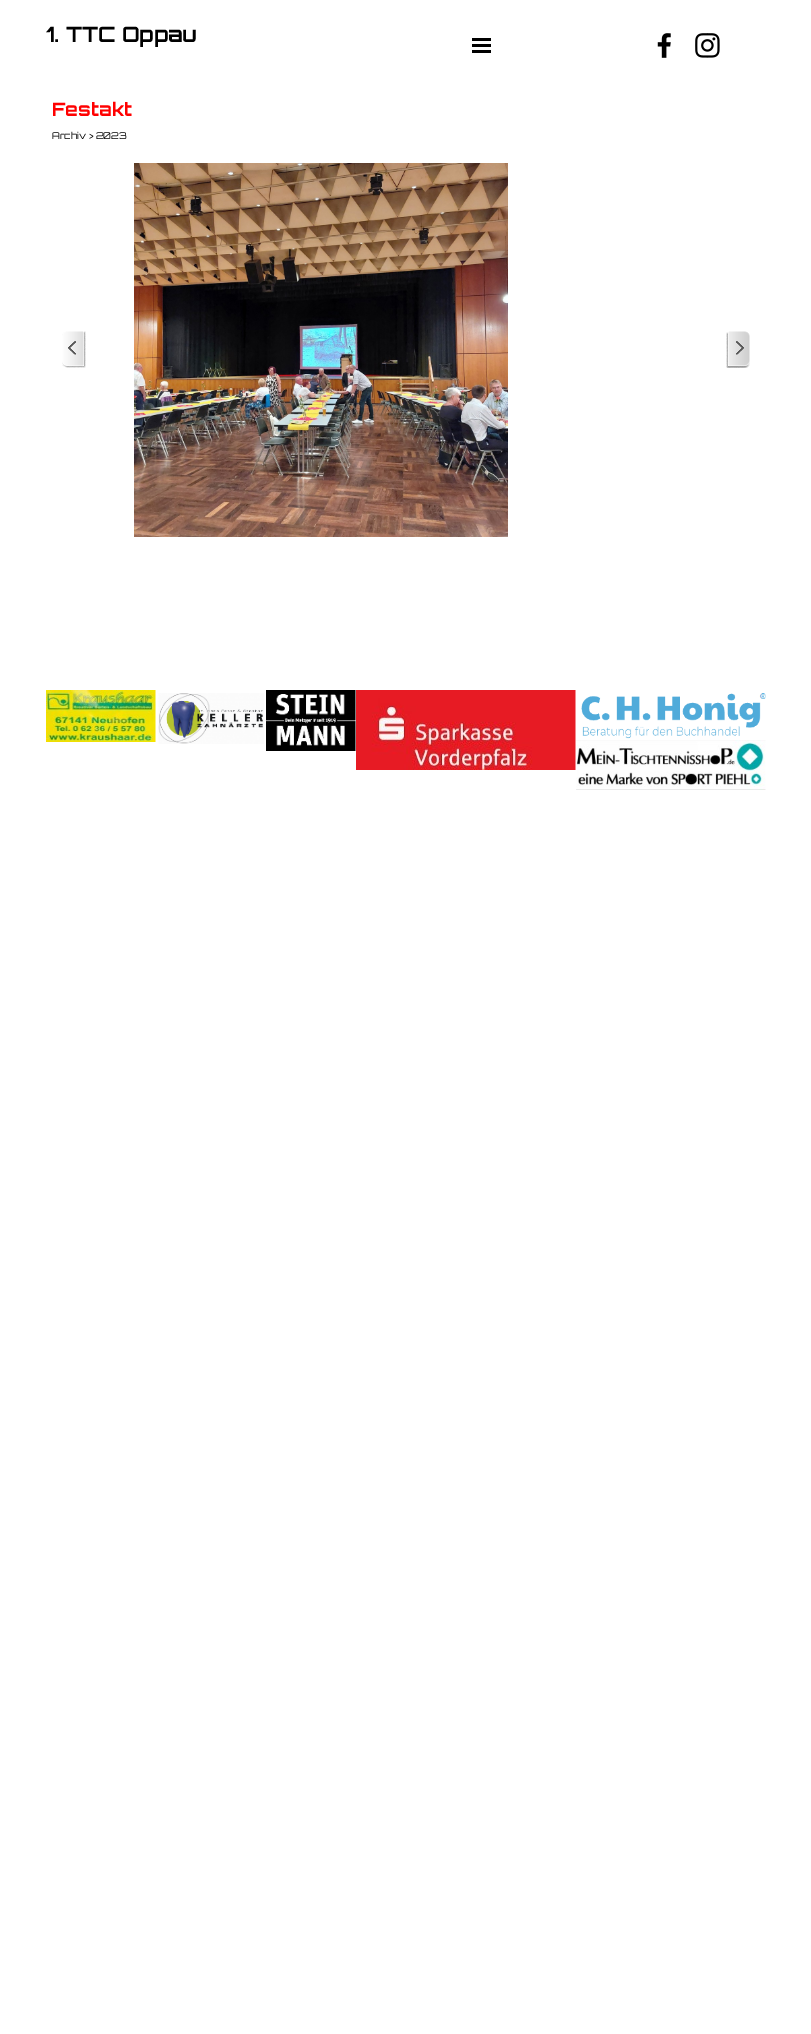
%!PS-Adobe-3.0
%%BoundingBox: 0 0 811 2034
%%LanguageLevel: 3
%%Pages: 1
%%EndComments
%%BeginProlog
/setink { dup -16 bitshift 255 div exch dup -8 bitshift 255 and 255 div exch 255 and 255 div setrgbcolor } def
/usefont { [ exch dup neg 0 0 3 -1 roll 0 0 ] selectfont } def
/drawimage { 5 dict begin { /h /w /y /x /name } { exch def } forall
  gsave x y translate w h scale
  w h 8 [w 0 0 h 0 0] name (r) file false 3 colorimage grestore end } def
%%EndProlog
%%BeginSetup
<< /PageSize [811 2034] >> setpagedevice
%%EndSetup
%%Page: 1 1
0 2034 translate 1 -1 scale
4 setmiterlimit
16#FFFFFF setink
0 0 811 2034 rectfill
/Orbitron-Bold 21.25 usefont
16#000000 setink
46 42 moveto (1. TTC Oppau) show
[
    [472 38 19 3 16#000000]
    [472 44 19 3 16#000000]
    [472 50 19 3 16#000000]
] { aload pop setink rectfill } forall
(img1.raw) 657 33 14 25 drawimage
(img2.raw) 695 33 25 25 drawimage
/Orbitron-Bold 18.5 usefont
16#FF0000 setink
52 116 moveto (Festakt) show
/Orbitron-Regular 9.25 usefont
16#000000 setink
52 139 moveto (Archiv > 2023) show
(img3.raw) 62 331 24 37 drawimage
(img4.raw) 134 163 374 374 drawimage
(img5.raw) 726 331 24 37 drawimage
(img6.raw) 46 690 110 52 drawimage
(img7.raw) 158 693 106 51 drawimage
(img8.raw) 266 690 90 61 drawimage
(img9.raw) 356 690 220 80 drawimage
(img10.raw) 581 693 185 46 drawimage
(img11.raw) 576 740 190 50 drawimage
showpage
%%EOF
